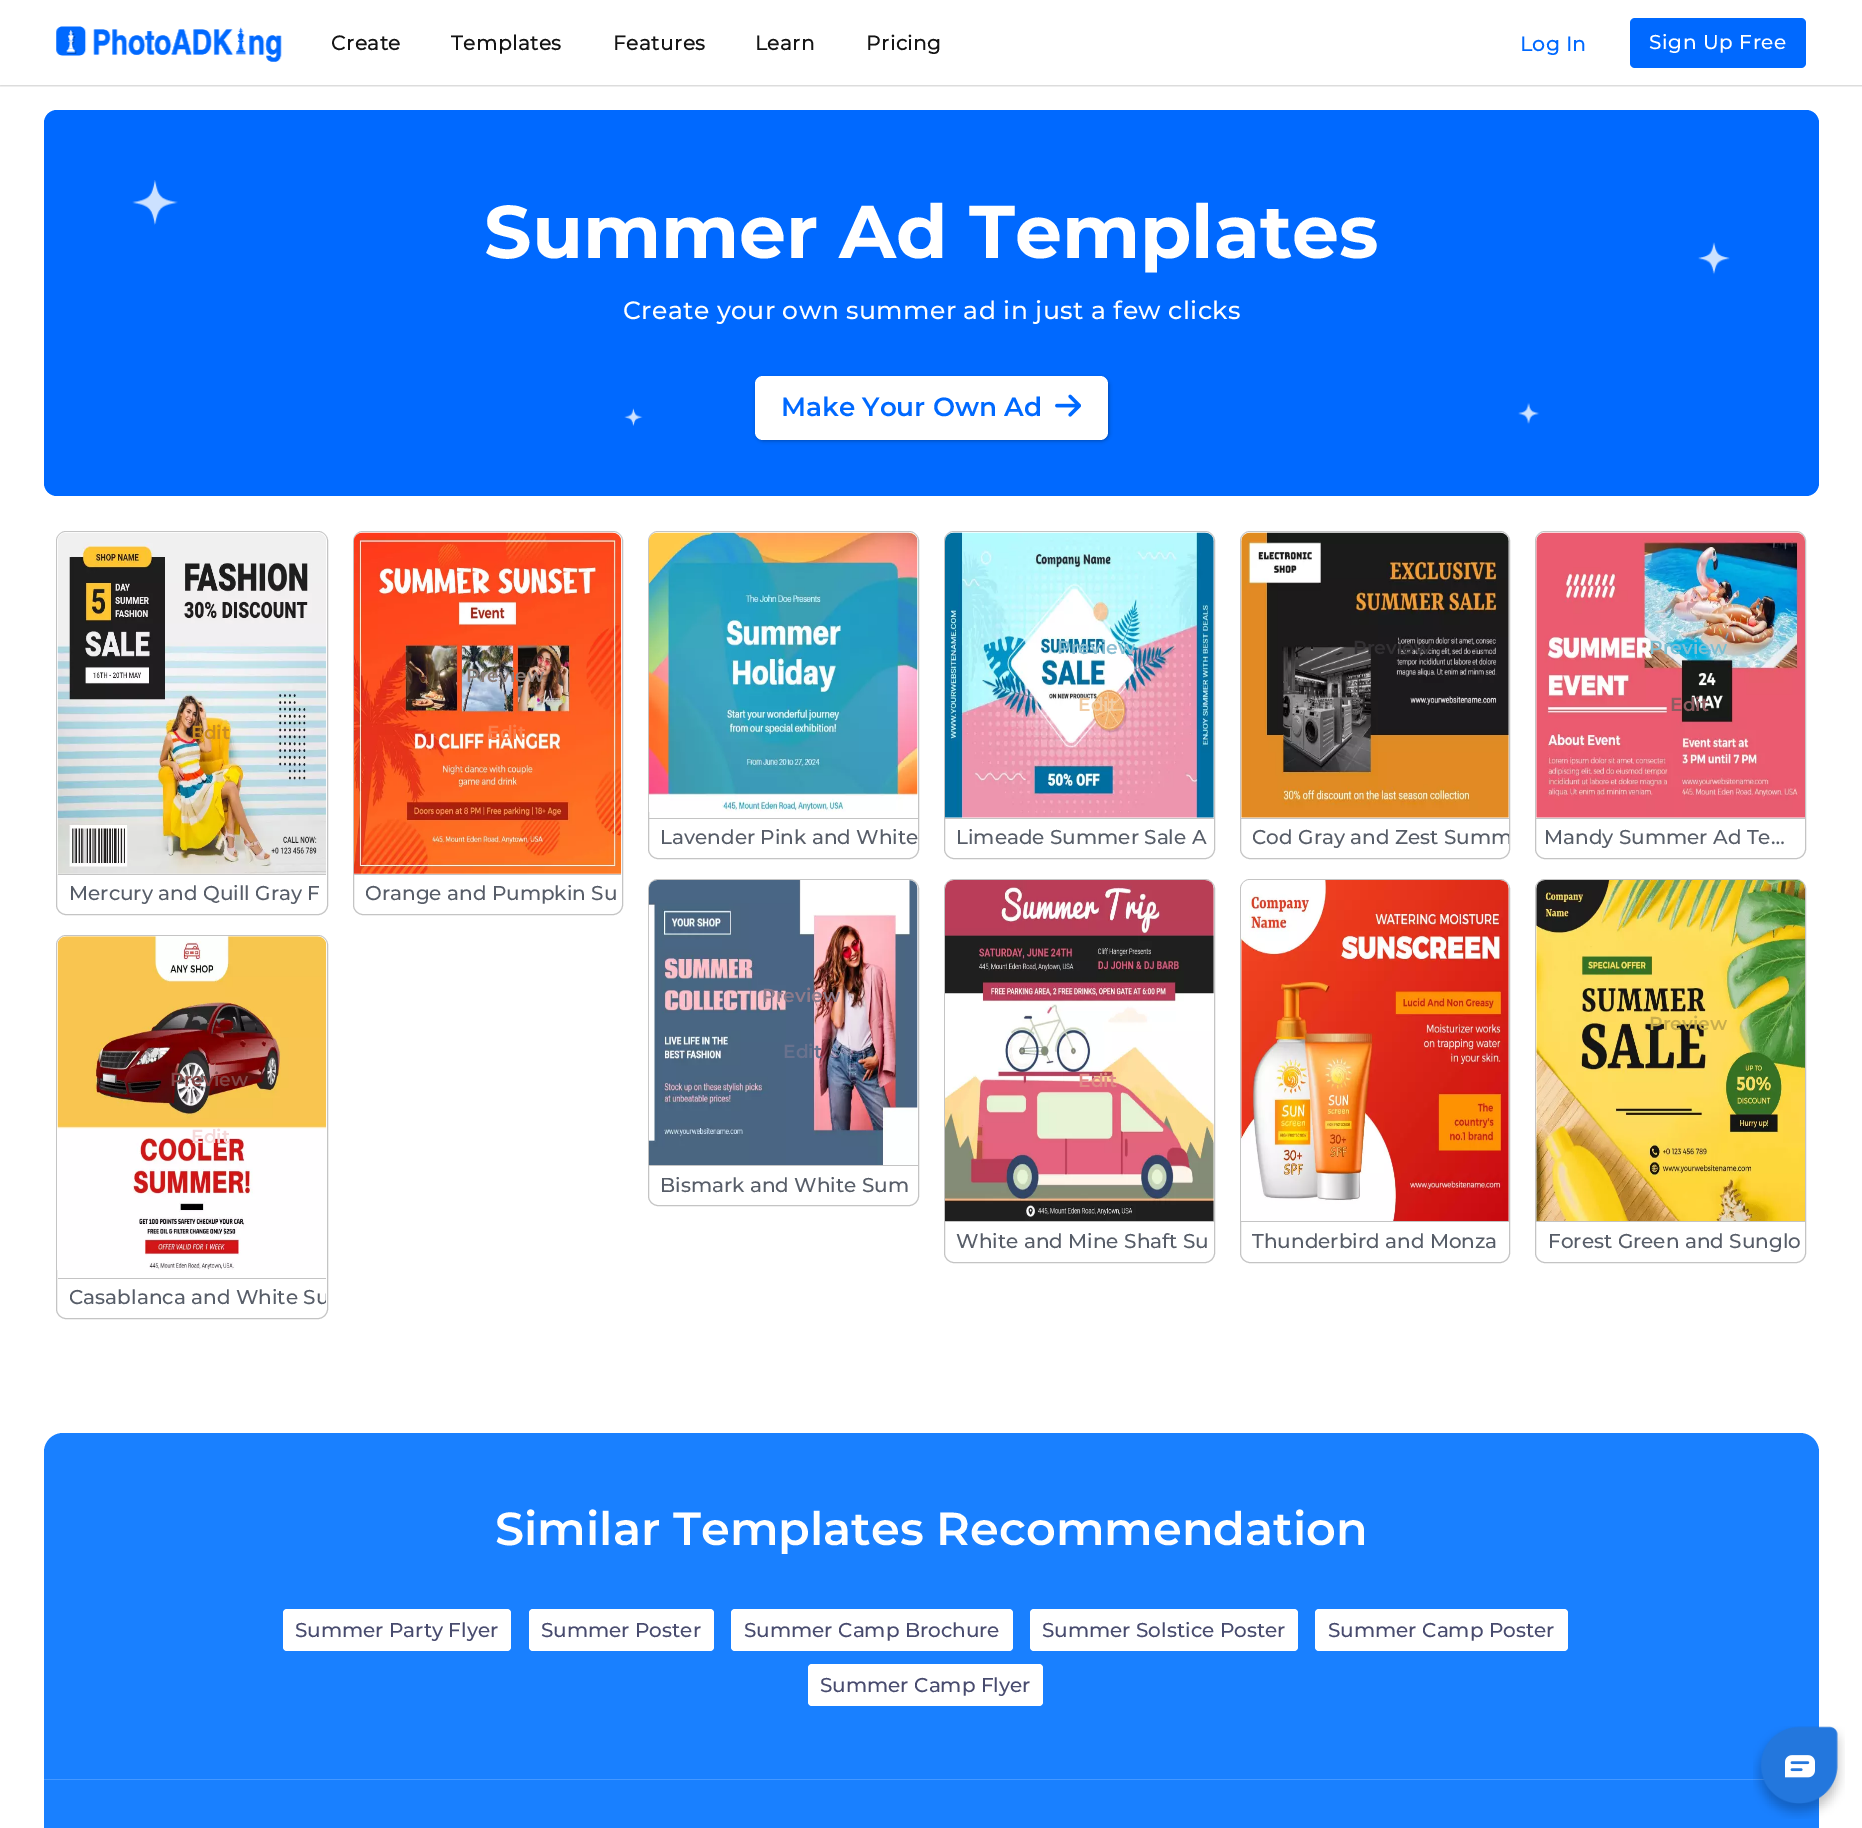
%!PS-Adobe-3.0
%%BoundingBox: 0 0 1862 1828
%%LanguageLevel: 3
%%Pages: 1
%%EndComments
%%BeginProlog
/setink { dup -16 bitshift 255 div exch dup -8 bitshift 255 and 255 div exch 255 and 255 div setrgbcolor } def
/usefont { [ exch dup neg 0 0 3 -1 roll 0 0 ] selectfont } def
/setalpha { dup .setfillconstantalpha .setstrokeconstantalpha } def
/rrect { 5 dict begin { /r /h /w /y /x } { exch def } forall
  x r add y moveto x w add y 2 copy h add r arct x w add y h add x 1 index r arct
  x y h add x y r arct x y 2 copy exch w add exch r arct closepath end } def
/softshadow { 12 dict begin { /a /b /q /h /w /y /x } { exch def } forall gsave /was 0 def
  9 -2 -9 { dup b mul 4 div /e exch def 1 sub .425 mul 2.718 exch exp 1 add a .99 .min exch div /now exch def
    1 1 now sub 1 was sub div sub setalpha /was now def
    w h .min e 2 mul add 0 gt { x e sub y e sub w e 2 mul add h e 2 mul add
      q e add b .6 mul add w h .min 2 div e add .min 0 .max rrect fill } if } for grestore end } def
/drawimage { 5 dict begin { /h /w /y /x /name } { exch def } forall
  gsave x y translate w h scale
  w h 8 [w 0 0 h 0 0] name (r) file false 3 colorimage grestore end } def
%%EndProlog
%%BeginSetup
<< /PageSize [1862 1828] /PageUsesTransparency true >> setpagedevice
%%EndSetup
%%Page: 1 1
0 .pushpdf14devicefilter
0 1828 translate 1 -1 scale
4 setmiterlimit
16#FFFFFF setink
0 0 1862 1828 rectfill
16#0069FF setink
44 110 1775 386 13 rrect fill
(img1.raw) 132 180 1598 246 drawimage
gsave
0 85 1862 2 rectclip
16#000000 setink
0 1 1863 85 0 1 0.2 softshadow
grestore
(img2.raw) 56 26 226 36 drawimage
/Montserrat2-Bold 20 usefont
16#151515 setink
331 50 moveto 0.6 0 (Create) ashow
451 50 moveto 0.6 0 (Templates) ashow
613 50 moveto 0.6 0 (Features) ashow
755 50 moveto 0.6 0 (Learn) ashow
866 50 moveto 0.6 0 (Pricing) ashow
16#0069FF setink
1520 51 moveto 0.6 0 (Log In) ashow
1630 18 176 50 5 rrect fill
/Montserrat-Medium 20 usefont
16#FFFFFF setink
1649 49 moveto 0.6 0 (Sign Up Free) ashow
/Montserrat-Bold 74.5 usefont
484 258 moveto (Summer Ad Templates) show
/Montserrat-Medium 25 usefont
623 319 moveto 0.4 0 (Create your own summer ad in just a few clicks) ashow
16#000000 setink
756 378 353 63 8 2 0.3 softshadow
16#FFFFFF setink
755 376 353 64 8 rrect fill
/Montserrat-SemiBold 26.25 usefont
16#0069FF setink
781 416 moveto (Make Your Own Ad) show
(img3.raw) 1055 394 26 23 drawimage
16#C4C4C4 setink
56.5 531.5 271 383 9.5 rrect stroke
(img4.raw) 57 532 270 342 drawimage
/Montserrat-SemiBold 18.75 usefont
16#CA8E23 setink
191 739 moveto (Edit) show
16#C4C4C4 setink
58 874 268 1 rectfill
/Montserrat-Medium 20 usefont
16#575D68 setink
69 900 moveto (Mercury and Quill Gray F) show
16#C4C4C4 setink
353.5 531.5 269 383 9.5 rrect stroke
(img5.raw) 353 532 269 342 drawimage
/Montserrat-SemiBold 18.75 usefont
16#8E807C setink
466 682 moveto (Preview) show
16#FB7E4B setink
487 739 moveto (Edit) show
16#C4C4C4 setink
354 874 267 1 rectfill
/Montserrat-Medium 20 usefont
16#575D68 setink
365 900 moveto (Orange and Pumpkin Su) show
16#C4C4C4 setink
648.5 531.5 270 327 9.5 rrect stroke
(img6.raw) 648 532 270 280 drawimage
649 818 269 1 rectfill
16#575D68 setink
660 844 moveto (Lavender Pink and White) show
16#C4C4C4 setink
944.5 531.5 270 327 9.5 rrect stroke
(img7.raw) 945 532 269 286 drawimage
/Montserrat-SemiBold 18.75 usefont
16#8ABED2 setink
1057 654 moveto (Preview) show
16#F1CDA6 setink
1078 711 moveto (Edit) show
16#C4C4C4 setink
945 818 269 1 rectfill
/Montserrat-Medium 20 usefont
16#575D68 setink
956 844 moveto (Limeade Summer Sale A) show
16#C4C4C4 setink
1240.5 531.5 269 327 9.5 rrect stroke
(img8.raw) 1241 532 268 286 drawimage
/Montserrat-SemiBold 18.75 usefont
16#323033 setink
1353 654 moveto (Preview) show
16#C4C4C4 setink
1241 818 268 1 rectfill
gsave
1241 533 268 325 9 rrect clip newpath
/Montserrat-Medium 20 usefont
16#575D68 setink
1252 844 moveto (Cod Gray and Zest Summ) show
grestore
1535.5 531.5 270 327 9.5 rrect stroke
(img9.raw) 1536 532 269 286 drawimage
16#7EBFD2 setink
1649 654 moveto (Preview) show
16#8C5C61 setink
1670 711 moveto (Edit) show
16#C4C4C4 setink
1536 818 269 1 rectfill
/Montserrat-Medium 20 usefont
16#575D68 setink
1544 844 moveto (Mandy Summer Ad Te…) show
16#C4C4C4 setink
56.5 935.5 271 383 9.5 rrect stroke
(img10.raw) 57 936 270 334 drawimage
/Montserrat-SemiBold 18.75 usefont
16#834747 setink
170 1086 moveto (Preview) show
16#F5D9DA setink
191 1143 moveto (Edit) show
16#C4C4C4 setink
58 1278 268 1 rectfill
gsave
58 936 268 382 9 rrect clip newpath
/Montserrat-Medium 20 usefont
16#575D68 setink
69 1304 moveto (Casablanca and White Su) show
grestore
648.5 879.5 270 326 9.5 rrect stroke
(img11.raw) 648 880 270 285 drawimage
16#8E7B8A setink
762 1002 moveto (Preview) show
16#69728E setink
783 1058 moveto (Edit) show
16#C4C4C4 setink
649 1165 269 1 rectfill
/Montserrat-Medium 20 usefont
16#575D68 setink
660 1192 moveto (Bismark and White Sum) show
16#C4C4C4 setink
944.5 879.5 270 383 9.5 rrect stroke
(img12.raw) 945 880 269 341 drawimage
/Montserrat-SemiBold 18.75 usefont
16#E28B87 setink
1078 1087 moveto (Edit) show
16#C4C4C4 setink
945 1221 269 1 rectfill
/Montserrat-Medium 20 usefont
16#575D68 setink
956 1248 moveto (White and Mine Shaft Su) show
16#C4C4C4 setink
1240.5 879.5 269 383 9.5 rrect stroke
(img13.raw) 1241 880 268 341 drawimage
1241 1221 268 1 rectfill
16#575D68 setink
1252 1248 moveto (Thunderbird and Monza) show
16#C4C4C4 setink
1535.5 879.5 270 383 9.5 rrect stroke
(img14.raw) 1536 880 269 341 drawimage
/Montserrat-SemiBold 18.75 usefont
16#C9AE4C setink
1649 1030 moveto (Preview) show
16#C4C4C4 setink
1536 1221 269 1 rectfill
/Montserrat-Medium 20 usefont
16#575D68 setink
1548 1248 moveto (Forest Green and Sunglo) show
16#1980FF setink
63 1433 moveto 1800 1433 lineto 1810.5 1433 1819 1441.5 1819 1452 curveto 1819 1780 lineto 44 1780 lineto 44 1452 lineto 44 1441.5 52.5 1433 63 1433 curveto closepath fill
16#4598FF setink
44 1779 1721 1 rectfill
/Montserrat-SemiBold 46.25 usefont
16#FFFFFF setink
495 1545 moveto (Similar Templates Recommendation) show
283 1609 228 42 4 rrect fill
/Montserrat-Medium 20 usefont
16#484B6E setink
295 1637 moveto (Summer Party Flyer) show
16#FFFFFF setink
529 1609 185 42 4 rrect fill
16#484B6E setink
541 1637 moveto (Summer Poster) show
16#FFFFFF setink
731 1609 282 42 4 rrect fill
16#484B6E setink
744 1637 moveto (Summer Camp Brochure) show
16#FFFFFF setink
1030 1609 268 42 4 rrect fill
16#484B6E setink
1042 1637 moveto (Summer Solstice Poster) show
16#FFFFFF setink
1315 1609 253 42 4 rrect fill
16#484B6E setink
1328 1637 moveto (Summer Camp Poster) show
16#FFFFFF setink
808 1664 235 42 4 rrect fill
16#484B6E setink
820 1692 moveto (Summer Camp Flyer) show
16#1980FF setink
44 1780 1775 48 rectfill
(img15.raw) 1753 1726 92 93 drawimage
(img16.raw) 1785 1755 30 23 drawimage
.poppdf14devicefilter showpage
%%EOF
